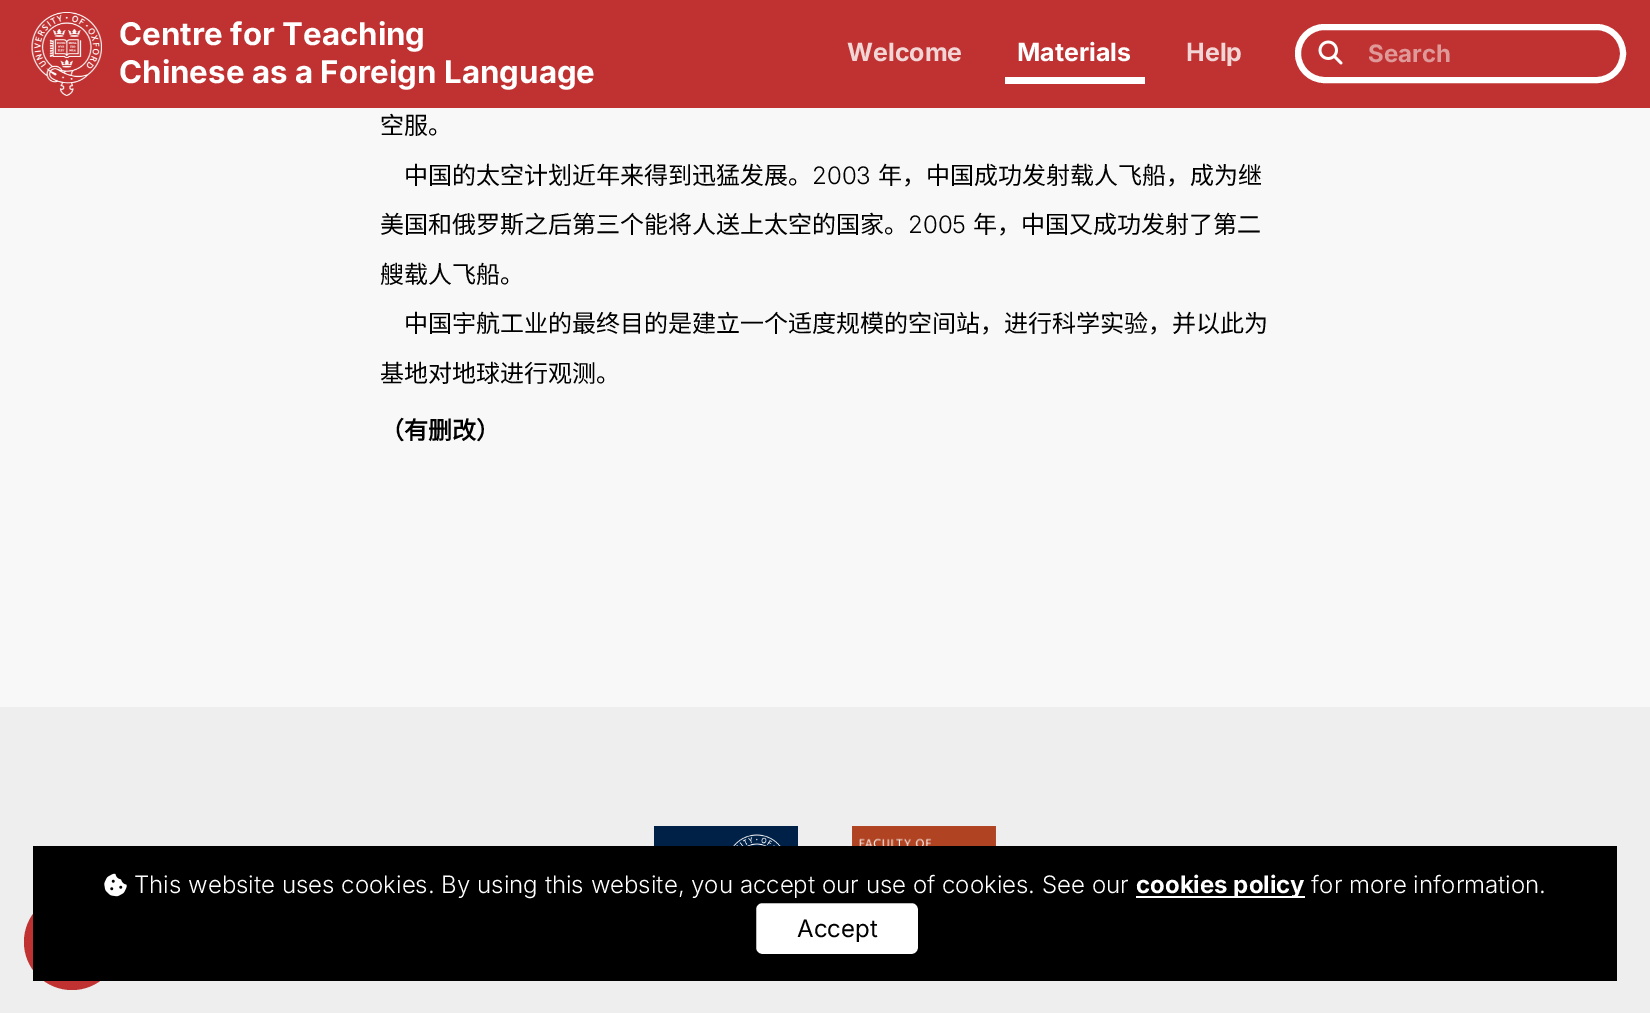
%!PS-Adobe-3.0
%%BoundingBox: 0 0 1650 1013
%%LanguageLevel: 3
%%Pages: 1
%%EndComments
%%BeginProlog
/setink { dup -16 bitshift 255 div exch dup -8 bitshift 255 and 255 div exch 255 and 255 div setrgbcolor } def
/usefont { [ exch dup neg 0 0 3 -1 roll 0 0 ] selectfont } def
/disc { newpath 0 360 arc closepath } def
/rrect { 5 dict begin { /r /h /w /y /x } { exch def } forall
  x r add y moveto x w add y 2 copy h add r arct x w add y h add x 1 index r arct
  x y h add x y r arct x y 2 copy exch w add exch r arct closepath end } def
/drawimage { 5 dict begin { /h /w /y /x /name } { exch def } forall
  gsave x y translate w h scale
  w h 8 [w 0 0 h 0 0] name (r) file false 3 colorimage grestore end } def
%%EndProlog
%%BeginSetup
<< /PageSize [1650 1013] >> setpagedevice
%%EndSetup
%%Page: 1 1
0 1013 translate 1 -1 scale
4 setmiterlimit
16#F8F8F8 setink
0 0 1650 1013 rectfill
16#C03232 setink
0 0 1650 108 rectfill
(img1.raw) 31 12 71 84 drawimage
/Inter-Bold 31.25 usefont
16#FFFFFF setink
119 45 moveto (Centre for Teaching) show
119 83 moveto (Chinese as a Foreign Language) show
/Inter-Bold 25 usefont
16#F2D6D6 setink
847 61 moveto (Welcome) show
16#FFFFFF setink
1005 77 140 7 rectfill
1017 61 moveto (Materials) show
16#F2D6D6 setink
1186 61 moveto (Help) show
16#FFFFFF setink
6 setlinewidth
1298 27 325 53 26.5 rrect stroke
(img2.raw) 1318 40 25 25 drawimage
/Inter-Bold 24 usefont
16#E09999 setink
1368 62 moveto (Search) show
/NotoSansCJKSC-Regular 24 usefont
16#000000 setink
380 134 moveto (空服。) show
404 184 moveto (中国的太空计划近年来得到迅猛发展。) show
/Inter-Light 24 usefont
812 184 moveto (2003) show
/NotoSansCJKSC-Regular 24 usefont
878 184 moveto (年，中国成功发射载人飞船，成为继) show
380 233 moveto (美国和俄罗斯之后第三个能将人送上太空的国家。) show
/Inter-Light 24 usefont
908 233 moveto (2005) show
/NotoSansCJKSC-Regular 24 usefont
[
    [(年，中国又成功发射了第二) 973 233]
    [(艘载人飞船。) 380 283]
    [(中国宇航工业的最终目的是建立一个适度规模的空间站，进行科学实验，并以此为) 404 332]
    [(基地对地球进行观测。) 380 382]
] { aload pop moveto show } forall
/NotoSansCJKSC-Bold 24 usefont
380 439 moveto (（有删改）) show
16#EEEEEE setink
0 707 1650 306 rectfill
16#C03232 setink
72 942 48 disc fill
16#000000 setink
33 846 1584 135 rectfill
(img3.raw) 104 873 23 24 drawimage
/Inter-Light 24 usefont
16#FFFFFF setink
134 893 moveto (This website uses cookies. By using this website, you accept our use of cookies. See our) show
1136 896 169 2 rectfill
/Inter-Bold 24 usefont
1136 893 moveto (cookies policy) show
/Inter-Light 24 usefont
1311 893 moveto (for more information.) show
754.5 901.5 165 54 7.5 rrect gsave fill grestore
16#000000 setink
3 setlinewidth
stroke
/Inter-Regular 24 usefont
797 937 moveto (Accept) show
(img4.raw) 654 826 144 20 drawimage
(img5.raw) 852 826 144 20 drawimage
showpage
%%EOF
